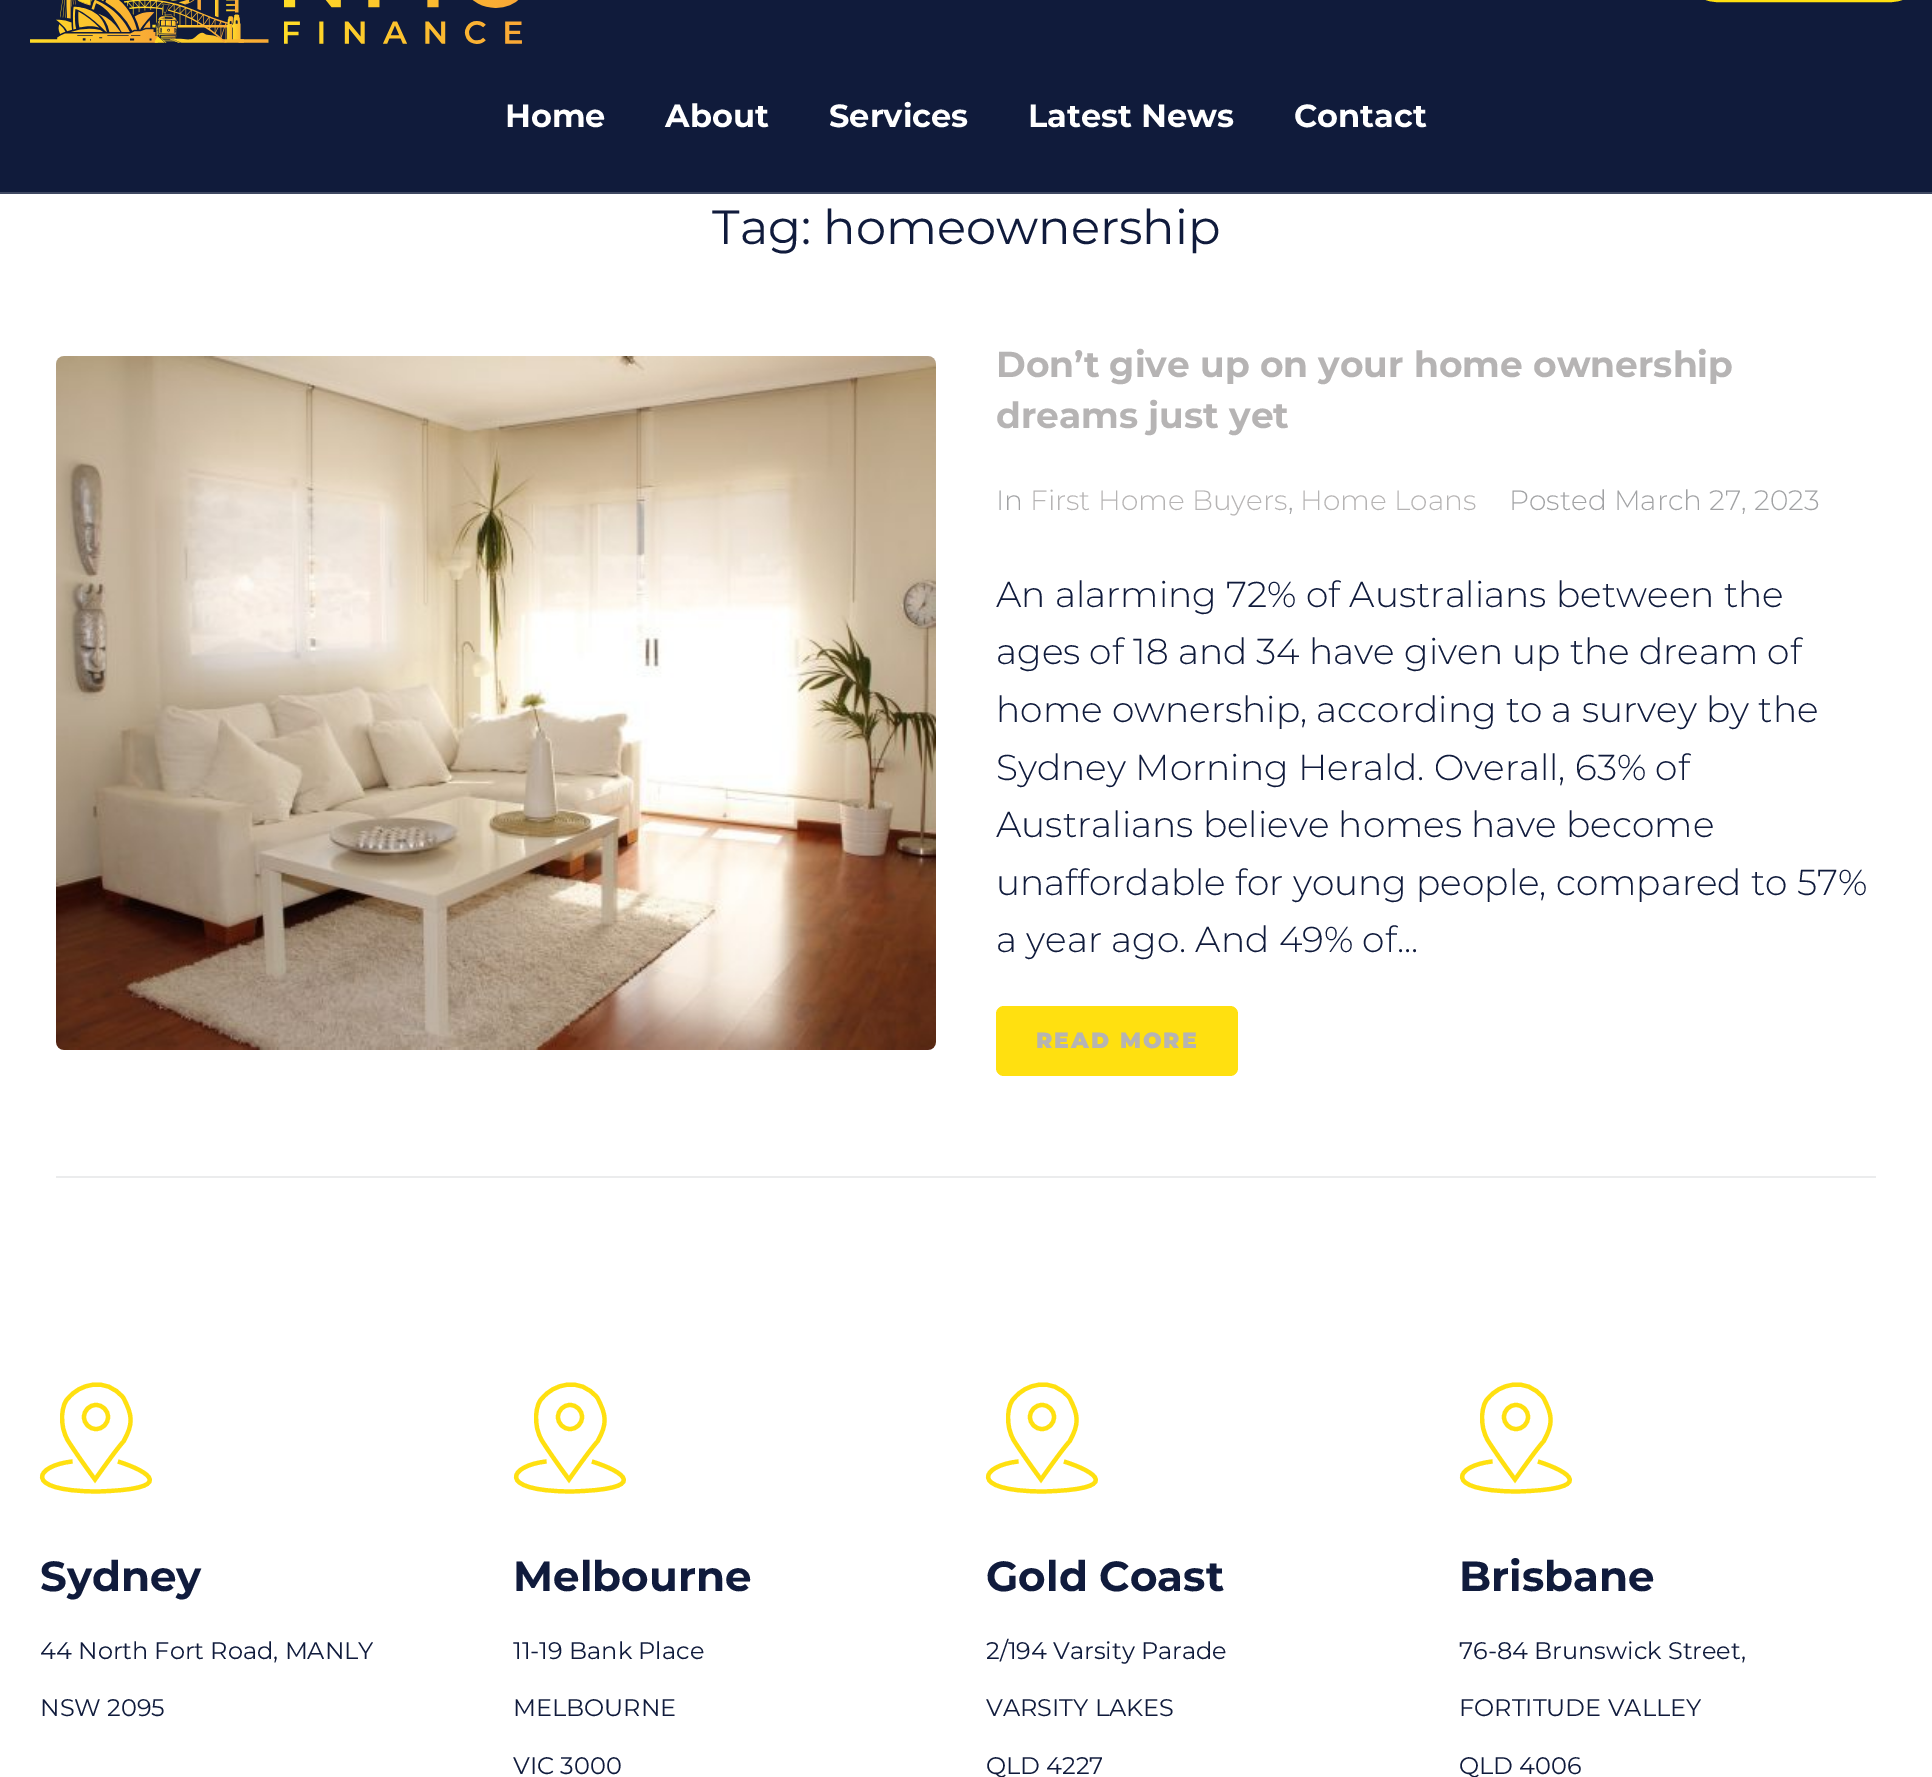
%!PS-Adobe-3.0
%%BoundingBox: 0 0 1932 1777
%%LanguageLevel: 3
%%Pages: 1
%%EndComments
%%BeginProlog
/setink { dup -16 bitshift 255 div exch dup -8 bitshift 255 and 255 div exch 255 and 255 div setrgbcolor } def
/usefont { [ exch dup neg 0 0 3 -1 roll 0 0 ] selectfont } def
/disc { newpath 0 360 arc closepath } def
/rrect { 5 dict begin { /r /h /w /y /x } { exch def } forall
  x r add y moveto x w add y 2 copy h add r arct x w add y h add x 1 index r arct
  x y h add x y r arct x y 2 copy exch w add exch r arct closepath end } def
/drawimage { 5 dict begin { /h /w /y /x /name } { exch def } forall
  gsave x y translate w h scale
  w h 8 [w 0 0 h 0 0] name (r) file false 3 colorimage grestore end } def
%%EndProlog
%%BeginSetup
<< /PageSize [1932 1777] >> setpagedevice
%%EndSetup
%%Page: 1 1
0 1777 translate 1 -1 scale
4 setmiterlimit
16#FFFFFF setink
0 0 1932 1777 rectfill
16#101B3B setink
0 0 1932 192 rectfill
16#404962 setink
0 192 1932 2 rectfill
16#FFE010 setink
4 setlinewidth
1678 -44 252 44 40 rrect stroke
(img1.raw) 30 0 492 44 drawimage
/Montserrat-Bold 32 usefont
16#FFFFFF setink
[
    [(Home) 505 127]
    [(About) 665 127]
    [(Services) 829 127]
    [(Latest News) 1028 127]
    [(Contact) 1294 127]
] { aload pop moveto show } forall
/Montserrat-Regular 48 usefont
16#101B3C setink
712 244 moveto (Tag: homeownership) show
(img2.raw) 56 356 880 694 drawimage
/Montserrat-Bold 36 usefont
16#B6B4B4 setink
996 377 moveto (Don’t give up on your home ownership) show
996 428 moveto (dreams just yet) show
/Montserrat-Light 28 usefont
16#A1A2A4 setink
996 510 moveto (In) show
16#B6B4B4 setink
1030 510 moveto (First Home Buyers) show
16#A1A2A4 setink
1288 510 moveto (,) show
16#B6B4B4 setink
1300 510 moveto (Home Loans) show
16#A1A2A4 setink
1509 510 moveto (Posted March 27, 2023) show
/Montserrat-Light 36 usefont
16#101B3C setink
[
    [(An alarming 72% of Australians between the) 996 607]
    [(ages of 18 and 34 have given up the dream of) 996 664]
    [(home ownership, according to a survey by the) 996 722]
    [(Sydney Morning Herald. Overall, 63% of) 996 780]
    [(Australians believe homes have become) 996 837]
    [(unaffordable for young people, compared to 57%) 996 895]
    [(a year ago. And 49% of...) 996 952]
] { aload pop moveto show } forall
16#FFE010 setink
996 1006 242 70 8 rrect fill
/Montserrat-Black 22 usefont
16#B6B4B4 setink
1036 1048 moveto 2 0 (READ MORE) ashow
16#EBECED setink
56 1176 1820 2 rectfill
16#FFE010 setink
4.2 setlinewidth
95 1479.5 moveto 95 1479.5 79 1458 68.5 1441.5 curveto 58 1425 62 1402.5 68.5 1398 curveto 78.5 1385 105.5 1375.5 123.5 1398 curveto 132.5 1415.5 133.5 1423.5 123.5 1441.5 curveto 117.5 1447.5 95 1479.5 95 1479.5 curveto closepath stroke
96 1417 12 disc stroke
118 1461.5 moveto 151 1472 177 1489.5 96.5 1491.5 curveto 20 1491 36 1465 72.5 1461.5 curveto stroke
/Montserrat-Bold 42 usefont
16#101B3C setink
40 1591 moveto (Sydney) show
/Montserrat-Regular 24 usefont
40 1659 moveto (44 North Fort Road, MANLY) show
40 1716 moveto (NSW 2095) show
16#FFE010 setink
569 1479.5 moveto 569 1479.5 553 1458 542.5 1441.5 curveto 532 1425 536 1402.5 542.5 1398 curveto 552.5 1385 579.5 1375.5 597.5 1398 curveto 606.5 1415.5 607.5 1423.5 597.5 1441.5 curveto 591.5 1447.5 569 1479.5 569 1479.5 curveto closepath stroke
570 1417 12 disc stroke
592 1461.5 moveto 625 1472 651 1489.5 570.5 1491.5 curveto 494 1491 510 1465 546.5 1461.5 curveto stroke
/Montserrat-Bold 42 usefont
16#101B3C setink
513 1591 moveto (Melbourne) show
/Montserrat-Regular 24 usefont
[
    [(11-19 Bank Place) 513 1659]
    [(MELBOURNE) 513 1716]
    [(VIC 3000) 513 1774]
] { aload pop moveto show } forall
16#FFE010 setink
1041 1479.5 moveto 1041 1479.5 1025 1458 1014.5 1441.5 curveto 1004 1425 1008 1402.5 1014.5 1398 curveto 1024.5 1385 1051.5 1375.5 1069.5 1398 curveto 1078.5 1415.5 1079.5 1423.5 1069.5 1441.5 curveto 1063.5 1447.5 1041 1479.5 1041 1479.5 curveto closepath stroke
1042 1417 12 disc stroke
1064 1461.5 moveto 1097 1472 1123 1489.5 1042.5 1491.5 curveto 966 1491 982 1465 1018.5 1461.5 curveto stroke
/Montserrat-Bold 42 usefont
16#101B3C setink
986 1591 moveto (Gold Coast) show
/Montserrat-Regular 24 usefont
[
    [(2/194 Varsity Parade) 986 1659]
    [(VARSITY LAKES) 986 1716]
    [(QLD 4227) 986 1774]
] { aload pop moveto show } forall
16#FFE010 setink
1515 1479.5 moveto 1515 1479.5 1499 1458 1488.5 1441.5 curveto 1478 1425 1482 1402.5 1488.5 1398 curveto 1498.5 1385 1525.5 1375.5 1543.5 1398 curveto 1552.5 1415.5 1553.5 1423.5 1543.5 1441.5 curveto 1537.5 1447.5 1515 1479.5 1515 1479.5 curveto closepath stroke
1516 1417 12 disc stroke
1538 1461.5 moveto 1571 1472 1597 1489.5 1516.5 1491.5 curveto 1440 1491 1456 1465 1492.5 1461.5 curveto stroke
/Montserrat-Bold 42 usefont
16#101B3C setink
1459 1591 moveto (Brisbane) show
/Montserrat-Regular 24 usefont
[
    [(76-84 Brunswick Street,) 1459 1659]
    [(FORTITUDE VALLEY) 1459 1716]
    [(QLD 4006) 1459 1774]
] { aload pop moveto show } forall
showpage
%%EOF
